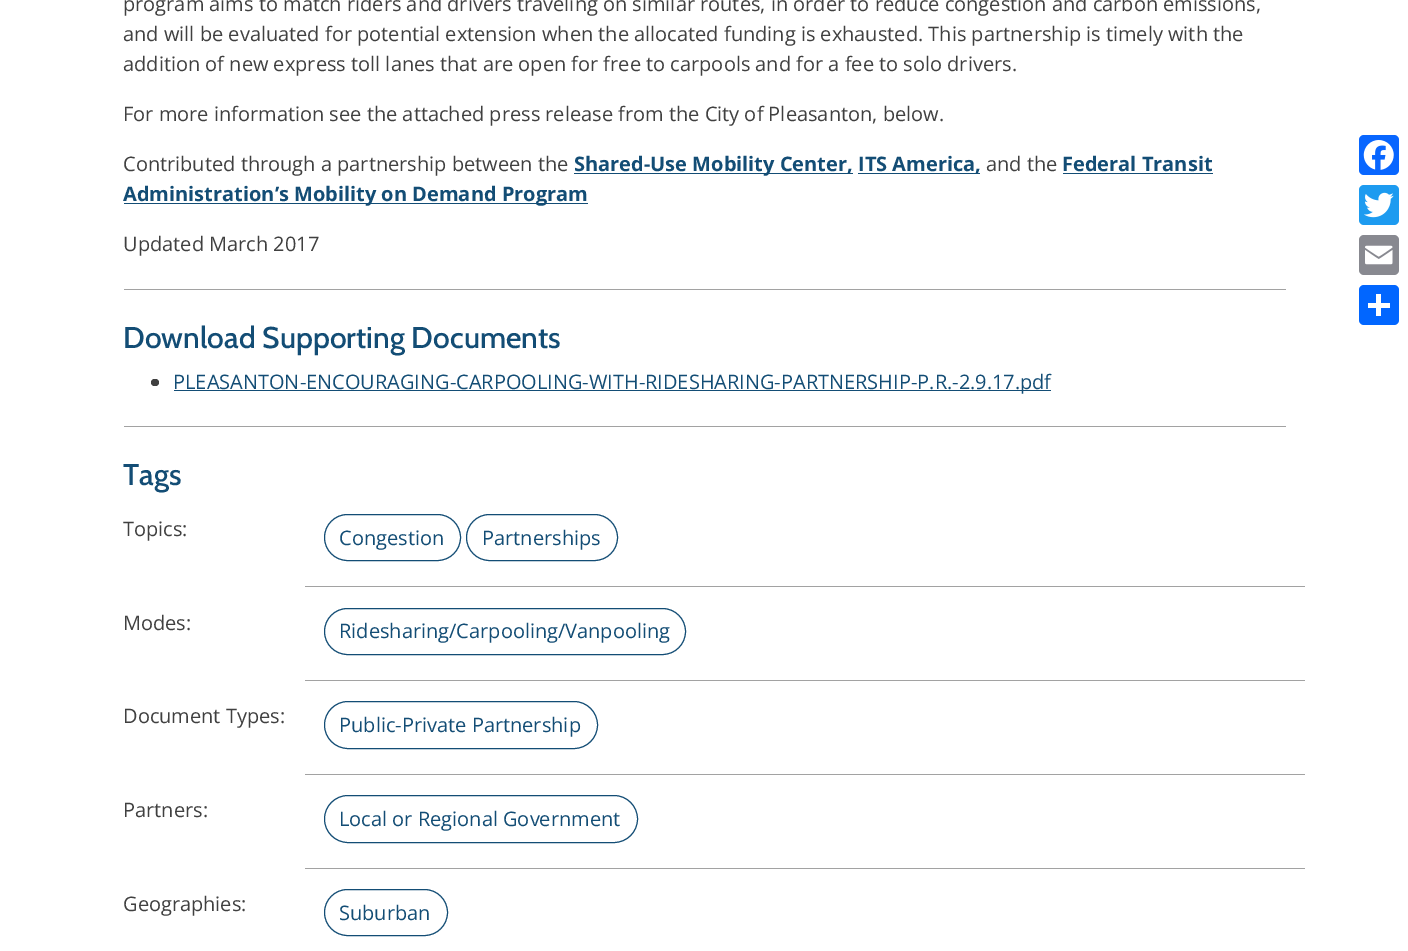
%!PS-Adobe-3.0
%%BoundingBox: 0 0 1408 951
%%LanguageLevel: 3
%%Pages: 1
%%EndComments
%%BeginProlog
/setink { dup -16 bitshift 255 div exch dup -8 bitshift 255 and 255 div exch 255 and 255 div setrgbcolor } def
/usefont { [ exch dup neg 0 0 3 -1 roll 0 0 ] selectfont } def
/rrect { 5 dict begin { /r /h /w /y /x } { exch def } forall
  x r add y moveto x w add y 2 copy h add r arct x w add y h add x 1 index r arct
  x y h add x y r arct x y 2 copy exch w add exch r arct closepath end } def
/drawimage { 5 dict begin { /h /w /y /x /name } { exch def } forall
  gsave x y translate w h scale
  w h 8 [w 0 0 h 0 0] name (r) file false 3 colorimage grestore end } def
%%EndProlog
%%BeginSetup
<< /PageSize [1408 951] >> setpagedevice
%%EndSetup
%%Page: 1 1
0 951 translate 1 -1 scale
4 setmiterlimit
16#FFFFFF setink
0 0 1408 951 rectfill
16#A2A2A2 setink
124 289 1162 1 rectfill
/OpenSans-Regular 20 usefont
16#404040 setink
[
    [(program aims to match riders and drivers traveling on similar routes, in order to reduce congestion and carbon emissions,) 123 11]
    [(and will be evaluated for potential extension when the allocated funding is exhausted. This partnership is timely with the) 123 41]
    [(addition of new express toll lanes that are open for free to carpools and for a fee to solo drivers.) 123 71]
    [(For more information see the attached press release from the City of Pleasanton, below.) 123 121]
    [(Contributed through a partnership between the) 123 171]
] { aload pop moveto show } forall
16#134D75 setink
574 173 279 1 rectfill
/OpenSans-Bold 20 usefont
574 171 moveto (Shared-Use Mobility Center,) show
858 173 122 1 rectfill
858 171 moveto (ITS America,) show
/OpenSans-Regular 20 usefont
16#404040 setink
986 171 moveto (and the) show
/OpenSans-Bold 20 usefont
16#134D75 setink
1062 171 moveto (Federal Transit) show
1063 173 150 1 rectfill
124 203 464 1 rectfill
123 201 moveto (Administration’s Mobility on Demand Program) show
/OpenSans-Regular 20 usefont
16#404040 setink
123 251 moveto (Updated March 2017) show
16#A2A2A2 setink
124 426 1162 1 rectfill
/Cabin-Medium 30 usefont
16#134D75 setink
123 348 moveto (Download Supporting Documents) show
16#404040 setink
151 379 8 7 3.5 rrect fill
16#134D75 setink
174 390 877 1 rectfill
/OpenSans-Regular 20 usefont
173 389 moveto (PLEASANTON-ENCOURAGING-CARPOOLING-WITH-RIDESHARING-PARTNERSHIP-P.R.-2.9.17.pdf) show
/Cabin-Medium 30 usefont
123 485 moveto (Tags) show
/OpenSans-Regular 20 usefont
16#404040 setink
123 536 moveto (Topics:) show
16#A2A2A2 setink
305 586 1000 1 rectfill
16#134D75 setink
324.5 514.5 136 46 23 rrect stroke
339 545 moveto (Congestion) show
466.5 514.5 151 46 23 rrect stroke
482 545 moveto (Partnerships) show
16#404040 setink
123 630 moveto (Modes:) show
16#A2A2A2 setink
305 680 1000 1 rectfill
16#134D75 setink
324.5 608.5 361 46 23 rrect stroke
339 638 moveto (Ridesharing/Carpooling/Vanpooling) show
16#404040 setink
123 723 moveto (Document Types:) show
16#A2A2A2 setink
305 774 1000 1 rectfill
16#134D75 setink
324.5 701.5 273 47 23.5 rrect stroke
339 732 moveto (Public-Private Partnership) show
16#404040 setink
123 817 moveto (Partners:) show
16#A2A2A2 setink
305 868 1000 1 rectfill
16#134D75 setink
324.5 795.5 313 47 23.5 rrect stroke
339 826 moveto (Local or Regional Government) show
16#404040 setink
123 911 moveto (Geographies:) show
16#134D75 setink
324.5 889.5 123 46 23 rrect stroke
339 920 moveto (Suburban) show
16#0866FF setink
1359 135 40 40 5 rrect fill
(img1.raw) 1363 140 31 30 drawimage
16#1D9BF0 setink
1359 185 40 40 5 rrect fill
(img2.raw) 1364 192 30 26 drawimage
16#888990 setink
1359 235 40 40 5 rrect fill
(img3.raw) 1365 245 28 20 drawimage
16#0166FF setink
1359 285 40 40 5 rrect fill
16#FFFFFF setink
1376 294 5 22 rectfill
1368 303 22 5 rectfill
showpage
%%EOF
